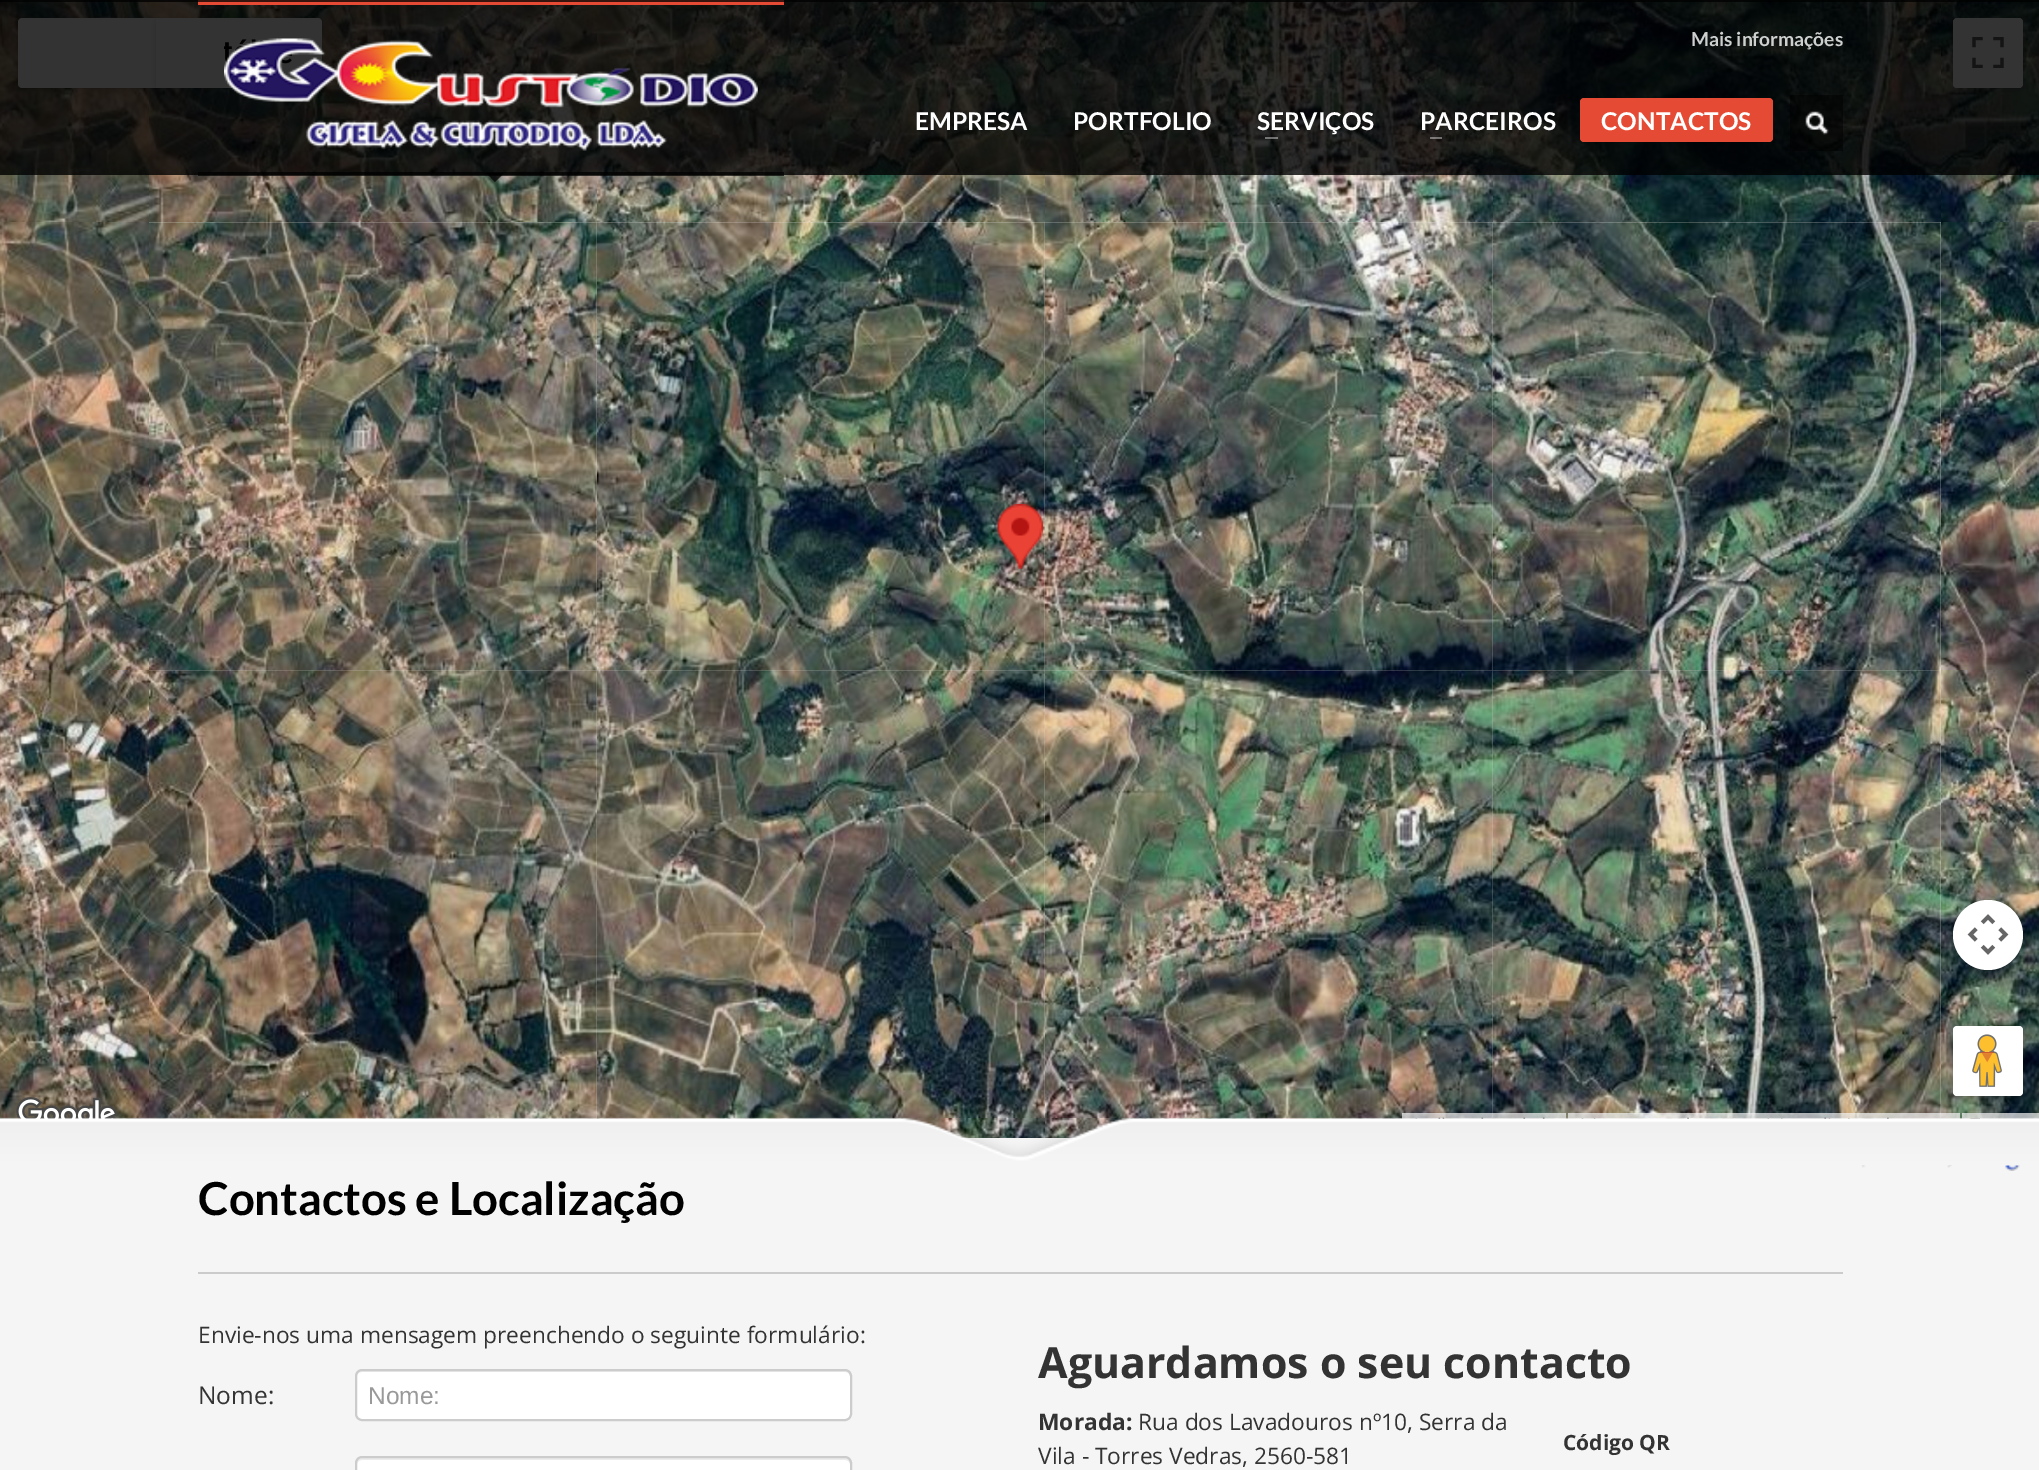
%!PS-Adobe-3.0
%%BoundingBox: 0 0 2039 1470
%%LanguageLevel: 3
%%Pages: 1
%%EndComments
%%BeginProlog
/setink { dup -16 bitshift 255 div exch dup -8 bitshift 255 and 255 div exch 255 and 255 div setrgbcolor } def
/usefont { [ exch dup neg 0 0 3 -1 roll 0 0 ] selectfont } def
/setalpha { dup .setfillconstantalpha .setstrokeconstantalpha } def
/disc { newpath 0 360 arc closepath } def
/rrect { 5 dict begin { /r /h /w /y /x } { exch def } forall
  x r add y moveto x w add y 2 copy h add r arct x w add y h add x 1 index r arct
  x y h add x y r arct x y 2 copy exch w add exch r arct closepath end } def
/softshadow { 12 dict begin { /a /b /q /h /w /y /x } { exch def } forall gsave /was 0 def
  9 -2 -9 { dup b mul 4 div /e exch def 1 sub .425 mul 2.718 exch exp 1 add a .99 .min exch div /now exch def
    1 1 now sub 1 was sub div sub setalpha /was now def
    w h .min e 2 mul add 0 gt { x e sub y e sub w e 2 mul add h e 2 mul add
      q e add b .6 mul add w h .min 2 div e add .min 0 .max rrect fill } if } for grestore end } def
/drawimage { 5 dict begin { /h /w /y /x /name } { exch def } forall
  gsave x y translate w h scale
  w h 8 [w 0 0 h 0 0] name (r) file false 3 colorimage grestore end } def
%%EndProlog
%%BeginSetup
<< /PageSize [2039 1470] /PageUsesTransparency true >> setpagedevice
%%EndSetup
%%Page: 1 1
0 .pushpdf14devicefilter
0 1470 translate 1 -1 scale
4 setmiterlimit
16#F5F5F5 setink
0 0 2039 1470 rectfill
(img1.raw) 0 0 149 222 drawimage
(img2.raw) 149 0 448 222 drawimage
(img3.raw) 597 0 448 222 drawimage
(img4.raw) 1045 0 448 222 drawimage
(img5.raw) 1493 0 448 222 drawimage
(img6.raw) 1941 0 98 222 drawimage
16#000000 setink
19 21 135 67 2 3.5 0.3 softshadow
16#FFFFFF setink
22 18 moveto 156 18 lineto 156 88 lineto 22 88 lineto 20 88 18 86 18 84 curveto 18 22 lineto 18 20 20 18 22 18 curveto closepath fill
16#000000 setink
158 21 162 67 2 3.5 0.3 softshadow
16#FFFFFF setink
156 18 moveto 318 18 lineto 320 18 322 20 322 22 curveto 322 84 lineto 322 86 320 88 318 88 curveto 156 88 lineto closepath fill
16#000000 setink
1955 21 66 67 2 3.5 0.3 softshadow
16#FFFFFF setink
1953 18 70 70 4 rrect fill
(img26.raw) 1972 37 32 31 drawimage
0.8 setalpha
[
    [0 0 2039 175 16#000000]
] { aload pop setink rectfill } forall
1 setalpha
[
    [198 0 586 5 16#E54A34]
] { aload pop setink rectfill } forall
0.75 setalpha
[
    [0 0 2039 2 16#000000]
] { aload pop setink rectfill } forall
1 setalpha
[
    [149 222 1792 896 16#E5E3DF]
] { aload pop setink rectfill } forall
(img7.raw) 0 222 149 448 drawimage
(img16.raw) 1044 670 449 448 drawimage
(img15.raw) 596 670 449 448 drawimage
(img9.raw) 596 222 449 449 drawimage
(img20.raw) 149 1118 448 1 drawimage
(img14.raw) 149 670 448 449 drawimage
(img8.raw) 149 222 448 449 drawimage
(img10.raw) 1044 222 449 449 drawimage
(img11.raw) 1492 222 449 449 drawimage
(img12.raw) 1941 222 98 448 drawimage
(img13.raw) 0 670 149 448 drawimage
(img17.raw) 1492 670 449 448 drawimage
(img18.raw) 1941 670 98 448 drawimage
(img19.raw) 0 1118 149 1 drawimage
(img21.raw) 597 1118 448 20 drawimage
(img22.raw) 1045 1118 448 20 drawimage
(img23.raw) 1493 1118 448 1 drawimage
(img24.raw) 1941 1118 98 1 drawimage
(img25.raw) 997 504 46 65 drawimage
(img27.raw) 16 1097 102 22 drawimage
16#000000 setink
1955 903 66 67 33 3.5 0.3 softshadow
16#FFFFFF setink
1988 935 35 disc fill
(img28.raw) 1967 914 42 41 drawimage
16#000000 setink
1955 1029 66 67 2 3.5 0.3 softshadow
16#FFFFFF setink
1953 1026 70 70 4 rrect fill
(img29.raw) 1972 1034 30 53 drawimage
0.7 setalpha
[
    [1402 1113 164 6 16#F5F5F5]
    [1568 1113 392 6 16#F5F5F5]
    [1962 1113 77 6 16#F5F5F5]
] { aload pop setink rectfill } forall
1 setalpha
(img31.raw) 1861 1165 159 6 drawimage
(img30.raw) 0 1114 2039 52 drawimage
0.7 setalpha
16#000000 setink
198 172 586 4 rectfill
1 setalpha
(img32.raw) 224 38 534 113 drawimage
0.7 setalpha
486.5 173 moveto 504 173 lineto 495 182 lineto closepath fill
/Lato-Bold 19.25 usefont
1 setalpha
16#CECFCF setink
1691 46 moveto (Mais informações) show
/Lato-Bold 24.5 usefont
16#FFFFFF setink
[
    [(EMPRESA) 915 130]
    [(PORTFOLIO) 1073 130]
    [(SERVIÇOS) 1257 130]
] { aload pop moveto show } forall
0.4 setalpha
1265 137 13 2 rectfill
1 setalpha
1420 130 moveto (PARCEIROS) show
0.4 setalpha
1430 137 12 2 rectfill
1 setalpha
16#E54A34 setink
1580 98 193 44 4 rrect fill
16#FFFFFF setink
1601 130 moveto (CONTACTOS) show
0.5 setalpha
16#000000 setink
1790 95 53 56 rectfill
1 setalpha
(img33.raw) 1805 111 24 24 drawimage
16#CBCBCB setink
198 1272 1645 2 rectfill
/Lato-Bold 45.5 usefont
16#000000 setink
198 1215 moveto (Contactos e Localização) show
/OpenSans-Regular 22.75 usefont
16#333333 setink
198 1343 moveto (Envie-nos uma mensagem preenchendo o seguinte formulário:) show
/OpenSans-Regular 24.5 usefont
198 1404 moveto (Nome:) show
16#FFFFFF setink
355 1369 497 52 7 rrect fill
16#ECECEC setink
362 1372 moveto 845 1372 lineto 848 1372 850 1374 850 1377 curveto 850 1417 lineto 851 1416 851 1415 851 1414 curveto 851 1375 lineto 851 1372 849 1370 846 1370 curveto 362 1370 lineto 359 1370 357 1372 357 1375 curveto 357 1377 lineto 357 1374 359 1372 362 1372 curveto closepath fill
16#CCCCCC setink
2 setlinewidth
356 1370 495 50 6 rrect stroke
/LiberationSans-Regular 24.5 usefont
16#999999 setink
368 1404 moveto (Nome:) show
16#FFFFFF setink
355 1456 497 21 7 rrect fill
16#ECECEC setink
362 1460 moveto 845 1460 lineto 848 1460 850 1462 850 1465 curveto 850 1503 lineto 849 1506 lineto 850 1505 851 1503 851 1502 curveto 851 1463 lineto 851 1460 849 1458 846 1458 curveto 362 1458 lineto 359 1458 357 1460 357 1463 curveto 357 1465 lineto 357 1462 359 1460 362 1460 curveto closepath fill
16#CCCCCC setink
356 1457 495 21 6 rrect stroke
/OpenSans-Bold 42.9 usefont
16#333333 setink
1038 1378 moveto (Aguardamos o seu contacto) show
/OpenSans-Bold 22.75 usefont
1038 1430 moveto (Morada:) show
/OpenSans-Regular 22.75 usefont
1138 1430 moveto (Rua dos Lavadouros nº10, Serra da) show
1038 1464 moveto (Vila - Torres Vedras, 2560-581) show
/OpenSans-Bold 21 usefont
1563 1450 moveto (Código QR) show
.poppdf14devicefilter showpage
%%EOF
